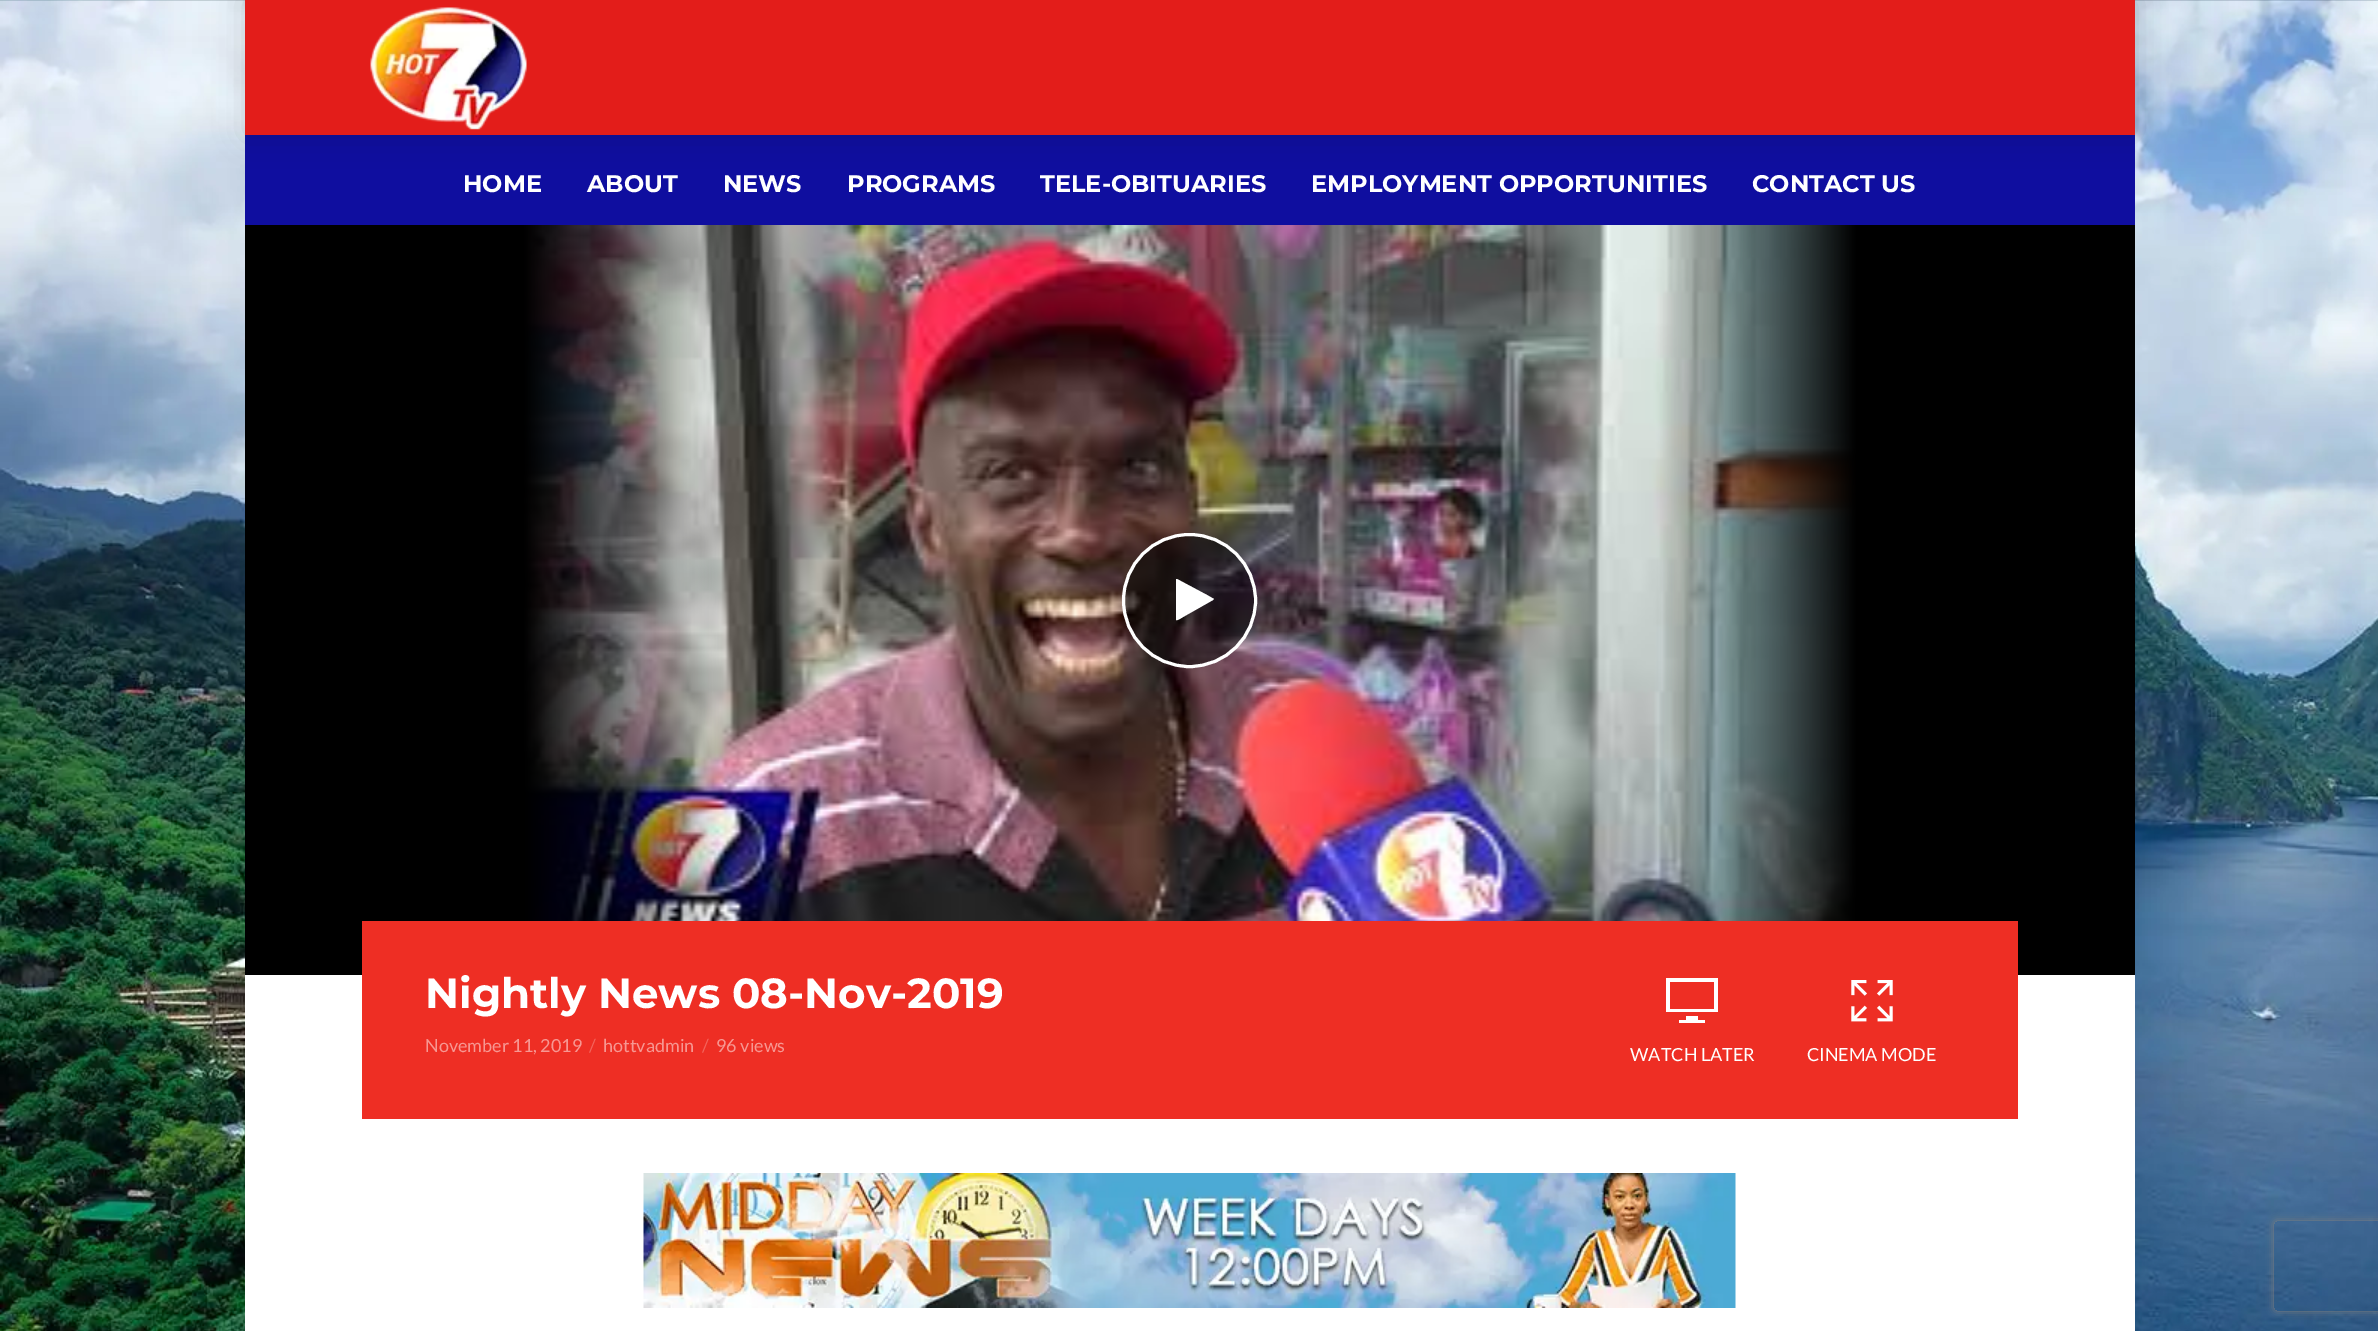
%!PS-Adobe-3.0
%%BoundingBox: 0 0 2378 1331
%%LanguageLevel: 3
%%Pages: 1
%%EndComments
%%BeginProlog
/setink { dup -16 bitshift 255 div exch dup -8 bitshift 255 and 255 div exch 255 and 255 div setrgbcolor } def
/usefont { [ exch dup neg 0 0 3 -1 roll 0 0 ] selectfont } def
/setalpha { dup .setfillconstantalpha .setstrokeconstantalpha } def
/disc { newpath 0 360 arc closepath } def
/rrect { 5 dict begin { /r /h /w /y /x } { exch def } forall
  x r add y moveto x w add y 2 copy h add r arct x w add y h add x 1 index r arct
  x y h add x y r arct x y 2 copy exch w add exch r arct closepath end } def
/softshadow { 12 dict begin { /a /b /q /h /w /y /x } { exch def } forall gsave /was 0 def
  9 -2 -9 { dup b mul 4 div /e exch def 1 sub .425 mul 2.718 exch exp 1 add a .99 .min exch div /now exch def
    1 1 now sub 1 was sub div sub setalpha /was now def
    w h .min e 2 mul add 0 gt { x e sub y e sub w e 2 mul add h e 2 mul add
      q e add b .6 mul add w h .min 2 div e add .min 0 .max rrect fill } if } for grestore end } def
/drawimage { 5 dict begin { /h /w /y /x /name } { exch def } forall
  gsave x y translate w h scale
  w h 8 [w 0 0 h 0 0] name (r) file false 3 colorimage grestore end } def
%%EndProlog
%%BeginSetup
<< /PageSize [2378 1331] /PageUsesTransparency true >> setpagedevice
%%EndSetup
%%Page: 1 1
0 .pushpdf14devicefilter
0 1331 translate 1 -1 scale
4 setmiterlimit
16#FFFFFF setink
0 0 2378 1331 rectfill
(img1.raw) 0 0 2378 1331 drawimage
245 975 1890 356 rectfill
16#0F0E9F setink
245 135 1890 90 rectfill
16#000000 setink
245 0 1890 135 0 15 0.15 softshadow
16#E31D1A setink
245 0 1890 135 rectfill
(img2.raw) 370 7 157 123 drawimage
/Montserrat-Bold 24 usefont
16#FFFFFF setink
[
    [(HOME) 463 192]
    [(ABOUT) 587 192]
    [(NEWS) 723 192]
    [(PROGRAMS) 847 192]
    [(TELE-OBITUARIES) 1040 192]
    [(EMPLOYMENT OPPORTUNITIES) 1311 192]
    [(CONTACT US) 1752 192]
] { aload pop moveto show } forall
16#000000 setink
245 225 1890 750 rectfill
(img3.raw) 524 225 1332 696 drawimage
0.5 setalpha
1189.5 600.5 66 disc fill
1 setalpha
16#FFFFFF setink
3 setlinewidth
1189.5 600.5 66 disc stroke
1213 600 moveto 1183 617 lineto 1183 617 1177 621 1176 620 curveto 1176 579 lineto 1177 579 lineto 1207 595 lineto 1214 599 lineto closepath fill
16#EE2E24 setink
362 921 1656 198 rectfill
/Montserrat-Bold 42 usefont
16#FFFFFF setink
425 1008 moveto (Nightly News 08-Nov-2019) show
/Lato-Regular 18 usefont
16#F79792 setink
425 1052 moveto (November 11, 2019) show
16#F3635B setink
589 1052 moveto (/) show
16#F79792 setink
603 1052 moveto (hottvadmin) show
16#F3635B setink
702 1052 moveto (/) show
16#F79792 setink
716 1052 moveto (96 views) show
16#FFFFFF setink
1666 1012 moveto 1718 1012 lineto 1718 978 lineto 1666 978 lineto closepath 1670 982 moveto 1714 982 lineto 1714 1009 lineto 1670 1009 lineto closepath 1686 1016 moveto 1686 1020 lineto 1679 1020 lineto 1679 1023 lineto 1705 1023 lineto 1705 1020 lineto 1698 1020 lineto 1698 1016 lineto closepath fill
1630 1061 moveto (WATCH LATER) show
(img4.raw) 1851 980 42 42 drawimage
1807 1061 moveto (CINEMA MODE) show
(img5.raw) 643 1173 1093 135 drawimage
gsave
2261 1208 moveto 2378 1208 lineto 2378 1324 lineto 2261 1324 lineto closepath 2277 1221 moveto 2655 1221 lineto 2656.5 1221 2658 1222.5 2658 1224 curveto 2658 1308 lineto 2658 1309.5 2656.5 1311 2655 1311 curveto 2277 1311 lineto 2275.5 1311 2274 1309.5 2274 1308 curveto 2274 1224 lineto 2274 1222.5 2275.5 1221 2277 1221 curveto closepath eoclip newpath
16#808080 setink
2274 1221 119 90 3 4 1 softshadow
grestore
.poppdf14devicefilter showpage
%%EOF
